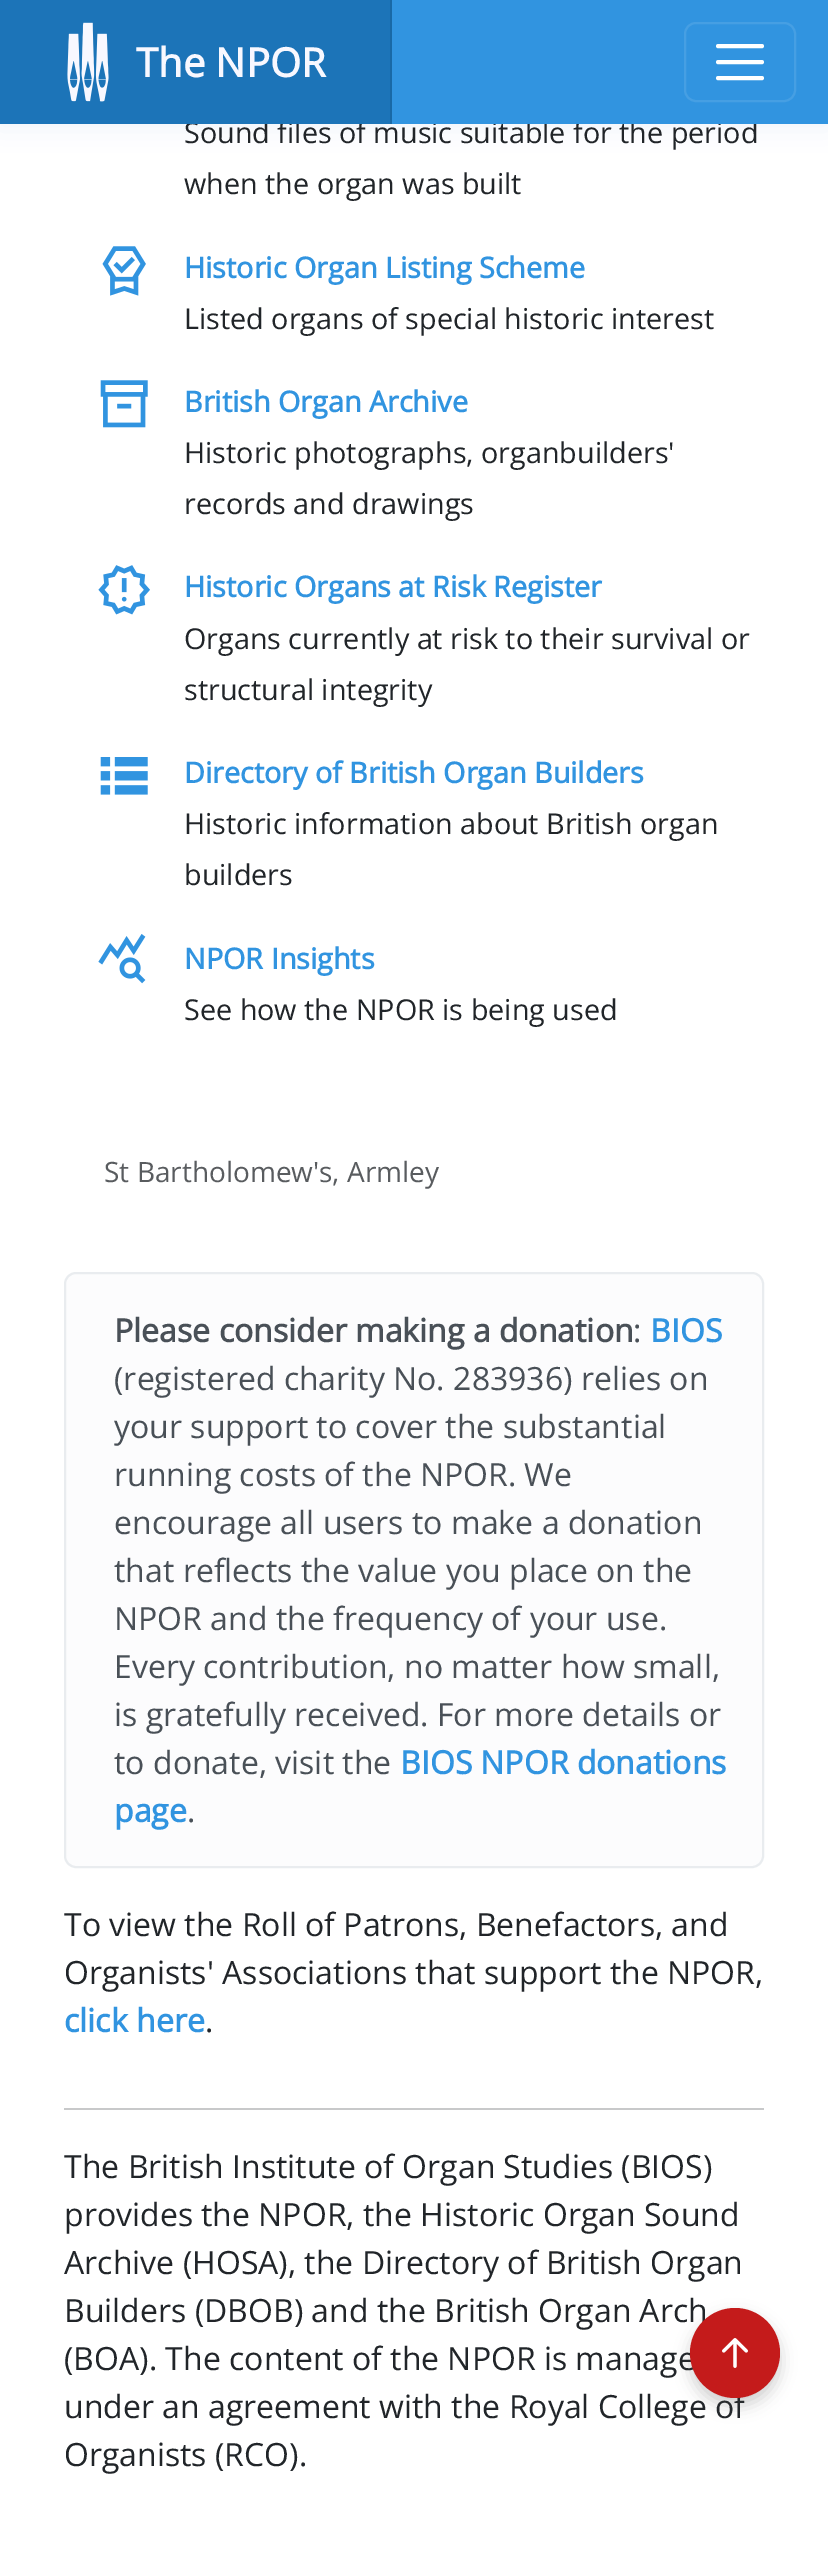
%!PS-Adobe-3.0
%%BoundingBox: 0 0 828 2557
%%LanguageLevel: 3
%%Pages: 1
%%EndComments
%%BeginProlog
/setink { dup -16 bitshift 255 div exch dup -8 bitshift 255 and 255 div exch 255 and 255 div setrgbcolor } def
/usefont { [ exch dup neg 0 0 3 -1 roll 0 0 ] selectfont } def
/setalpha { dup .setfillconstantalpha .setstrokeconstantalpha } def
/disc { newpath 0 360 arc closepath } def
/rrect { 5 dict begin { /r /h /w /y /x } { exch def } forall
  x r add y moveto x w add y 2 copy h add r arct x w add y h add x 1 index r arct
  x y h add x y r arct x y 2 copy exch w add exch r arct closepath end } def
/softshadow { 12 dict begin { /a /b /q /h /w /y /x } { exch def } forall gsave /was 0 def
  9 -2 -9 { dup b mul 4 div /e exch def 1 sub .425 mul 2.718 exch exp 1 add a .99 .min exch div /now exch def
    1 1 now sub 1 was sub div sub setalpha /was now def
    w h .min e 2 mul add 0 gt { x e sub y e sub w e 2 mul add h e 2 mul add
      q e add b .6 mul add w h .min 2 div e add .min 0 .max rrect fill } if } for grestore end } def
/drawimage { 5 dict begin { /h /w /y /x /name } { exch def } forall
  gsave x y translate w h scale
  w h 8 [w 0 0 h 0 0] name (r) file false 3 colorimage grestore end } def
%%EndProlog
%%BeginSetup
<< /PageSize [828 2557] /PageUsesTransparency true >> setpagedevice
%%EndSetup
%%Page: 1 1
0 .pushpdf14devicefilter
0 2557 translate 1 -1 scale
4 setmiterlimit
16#FFFFFF setink
0 0 828 2557 rectfill
16#1A6CAB setink
0 0 828 124 0 13 0.08 softshadow
/OpenSans-Regular 28.75 usefont
16#212529 setink
184 143 moveto (Sound files of music suitable for the period) show
[
    [392 0 436 124 16#3194E0]
    [0 0 390 124 16#1C74B8]
    [390 0 2 124 16#1969A6]
] { aload pop setink rectfill } forall
(img1.raw) 67 22 42 80 drawimage
/OpenSans-Bold 40 usefont
16#F8F8FF setink
136 77 moveto (The NPOR) show
16#469FE3 setink
2 setlinewidth
685 23 110 78 11 rrect stroke
16#FFFFFF setink
4 setlinewidth
1 setlinecap
718 46 moveto 762 46 lineto 718 62 moveto 762 62 lineto 718 78 moveto 762 78 lineto stroke
/OpenSans-Regular 28.75 usefont
16#212529 setink
184 194 moveto (when the organ was built) show
(img2.raw) 102 246 44 50 drawimage
/OpenSans-Bold 28.75 usefont
16#3194E0 setink
184 278 moveto (Historic Organ Listing Scheme) show
/OpenSans-Regular 28.75 usefont
16#212529 setink
184 329 moveto (Listed organs of special historic interest) show
(img3.raw) 100 380 48 48 drawimage
/OpenSans-Bold 28.75 usefont
16#3194E0 setink
184 412 moveto (British Organ Archive) show
/OpenSans-Regular 28.75 usefont
16#212529 setink
184 463 moveto (Historic photographs, organbuilders') show
184 514 moveto (records and drawings) show
(img4.raw) 98 565 52 50 drawimage
/OpenSans-Bold 28.75 usefont
16#3194E0 setink
184 597 moveto (Historic Organs at Risk Register) show
/OpenSans-Regular 28.75 usefont
16#212529 setink
184 649 moveto (Organs currently at risk to their survival or) show
184 700 moveto (structural integrity) show
(img5.raw) 100 757 48 38 drawimage
/OpenSans-Bold 28.75 usefont
16#3194E0 setink
184 783 moveto (Directory of British Organ Builders) show
/OpenSans-Regular 28.75 usefont
16#212529 setink
184 834 moveto (Historic information about British organ) show
184 885 moveto (builders) show
(img6.raw) 98 934 48 50 drawimage
/OpenSans-Bold 28.75 usefont
16#3194E0 setink
184 969 moveto (NPOR Insights) show
/OpenSans-Regular 28.75 usefont
16#212529 setink
184 1020 moveto (See how the NPOR is being used) show
/OpenSans-Regular 28 usefont
16#595C5F setink
104 1182 moveto (St Bartholomew's, Armley) show
16#FCFCFD setink
65 1273 698 594 11 rrect gsave fill grestore
16#E9ECEF setink
2 setlinewidth
0 setlinecap
stroke
/OpenSans-Bold 32 usefont
16#495057 setink
114 1342 moveto (Please consider making a donation) show
/OpenSans-Regular 32 usefont
633 1342 moveto (:) show
/OpenSans-Bold 32 usefont
16#3194E0 setink
650 1342 moveto (BIOS) show
/OpenSans-Regular 32 usefont
16#495057 setink
[
    [(\(registered charity No. 283936\) relies on) 114 1390]
    [(your support to cover the substantial) 114 1438]
    [(running costs of the NPOR. We) 114 1486]
    [(encourage all users to make a donation) 114 1534]
    [(that reflects the value you place on the) 114 1582]
    [(NPOR and the frequency of your use.) 114 1630]
    [(Every contribution, no matter how small,) 114 1678]
    [(is gratefully received. For more details or) 114 1726]
    [(to donate, visit the) 114 1774]
] { aload pop moveto show } forall
/OpenSans-Bold 32 usefont
16#3194E0 setink
400 1774 moveto (BIOS NPOR donations) show
114 1822 moveto (page) show
/OpenSans-Regular 32 usefont
16#495057 setink
187 1822 moveto (.) show
16#212529 setink
64 1936 moveto (To view the Roll of Patrons, Benefactors, and) show
64 1984 moveto (Organists' Associations that support the NPOR,) show
/OpenSans-Bold 32 usefont
16#3194E0 setink
64 2032 moveto (click here) show
/OpenSans-Regular 32 usefont
16#212529 setink
205 2032 moveto (.) show
16#C8C9CA setink
64 2108 700 2 rectfill
16#212529 setink
[
    [(The British Institute of Organ Studies \(BIOS\)) 64 2178]
    [(provides the NPOR, the Historic Organ Sound) 64 2226]
    [(Archive \(HOSA\), the Directory of British Organ) 64 2274]
    [(Builders \(DBOB\) and the British Organ Arch) 64 2322]
    [(\(BOA\). The content of the NPOR is manage) 64 2370]
    [(under an agreement with the Royal College of) 64 2418]
    [(Organists \(RCO\).) 64 2466]
] { aload pop moveto show } forall
16#454545 setink
690 2316 90 90 45 8 0.25 softshadow
16#C41B1B setink
735 2353 45 disc fill
(img7.raw) 722 2338 26 30 drawimage
.poppdf14devicefilter showpage
%%EOF
